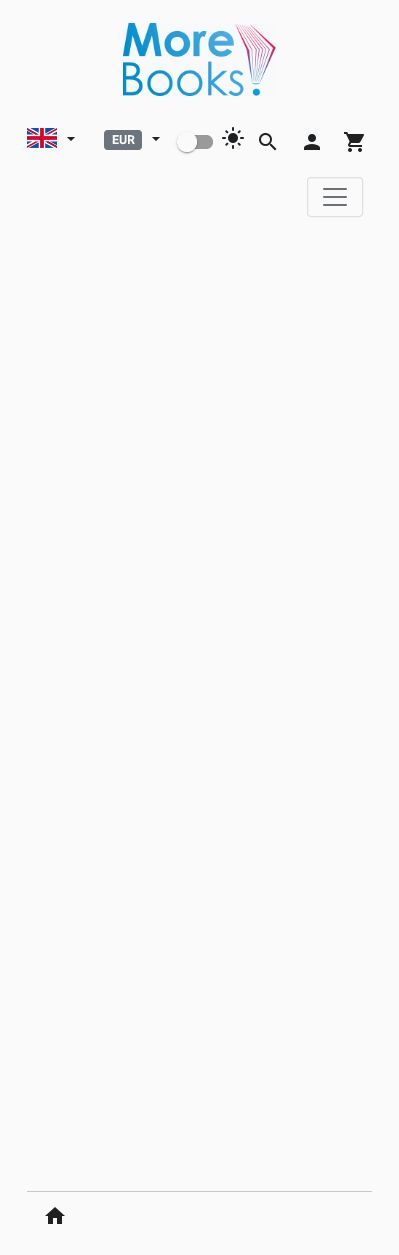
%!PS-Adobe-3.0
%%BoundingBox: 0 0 399 1255
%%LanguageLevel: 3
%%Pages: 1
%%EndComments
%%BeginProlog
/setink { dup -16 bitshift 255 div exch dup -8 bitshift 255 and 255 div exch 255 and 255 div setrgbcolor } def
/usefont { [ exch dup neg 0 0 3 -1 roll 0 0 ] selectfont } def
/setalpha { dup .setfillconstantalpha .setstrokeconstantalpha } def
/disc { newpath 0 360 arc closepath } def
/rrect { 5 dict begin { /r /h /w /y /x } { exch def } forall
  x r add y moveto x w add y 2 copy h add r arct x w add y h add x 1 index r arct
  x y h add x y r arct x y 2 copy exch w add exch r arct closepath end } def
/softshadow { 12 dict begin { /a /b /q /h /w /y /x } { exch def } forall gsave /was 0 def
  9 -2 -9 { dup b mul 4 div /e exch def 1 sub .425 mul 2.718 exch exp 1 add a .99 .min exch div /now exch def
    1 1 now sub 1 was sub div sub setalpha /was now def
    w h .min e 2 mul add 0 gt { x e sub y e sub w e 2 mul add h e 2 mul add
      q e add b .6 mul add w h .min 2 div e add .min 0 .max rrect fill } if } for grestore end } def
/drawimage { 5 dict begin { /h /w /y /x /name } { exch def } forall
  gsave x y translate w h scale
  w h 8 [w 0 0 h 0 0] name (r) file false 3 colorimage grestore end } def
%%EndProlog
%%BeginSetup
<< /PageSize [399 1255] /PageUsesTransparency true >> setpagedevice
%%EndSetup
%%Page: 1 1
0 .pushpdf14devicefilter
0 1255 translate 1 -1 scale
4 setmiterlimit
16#FAFAFA setink
0 0 399 1255 rectfill
(img1.raw) 123 23 153 73 drawimage
(img2.raw) 27 128 30 20 drawimage
16#212529 setink
67 137 moveto 75 137 lineto 71 141 lineto closepath fill
16#6C757D setink
104 130 38 20 4 rrect fill
/Roboto-Bold 12 usefont
16#FFFFFF setink
112 144 moveto (EUR) show
16#212529 setink
152 137 moveto 160 137 lineto 156 141 lineto closepath fill
16#9A9A9B setink
177 135 36 14 7 rrect fill
16#000000 setink
177 133 20 20 10 1.5 0.12 softshadow
177 133 20 20 10 0.5 0.14 softshadow
178 135 18 18 9 0.5 0.2 softshadow
16#FAFAFA setink
187 142 10 disc fill
(img3.raw) 222 127 22 22 drawimage
(img4.raw) 259 133 18 18 drawimage
(img5.raw) 304 134 16 16 drawimage
(img6.raw) 344 132 20 20 drawimage
16#DFE0E1 setink
307.5 177.5 55 39 3.5 rrect stroke
(img7.raw) 323 188 24 18 drawimage
16#C8C8C8 setink
27 1191 345 1 rectfill
(img8.raw) 45 1207 20 17 drawimage
.poppdf14devicefilter showpage
%%EOF
